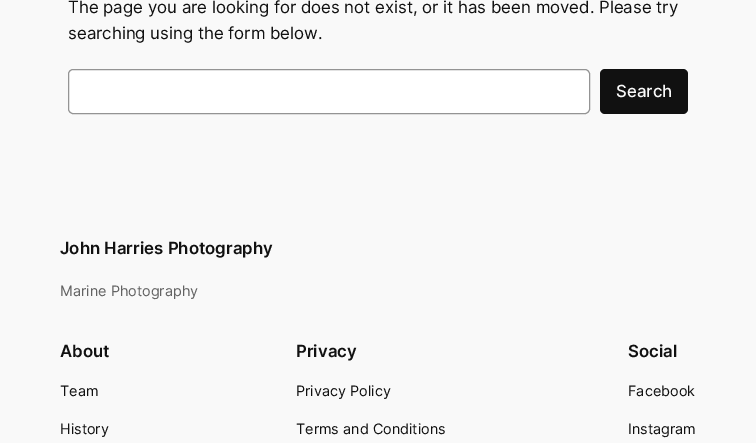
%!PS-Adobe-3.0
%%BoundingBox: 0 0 756 443
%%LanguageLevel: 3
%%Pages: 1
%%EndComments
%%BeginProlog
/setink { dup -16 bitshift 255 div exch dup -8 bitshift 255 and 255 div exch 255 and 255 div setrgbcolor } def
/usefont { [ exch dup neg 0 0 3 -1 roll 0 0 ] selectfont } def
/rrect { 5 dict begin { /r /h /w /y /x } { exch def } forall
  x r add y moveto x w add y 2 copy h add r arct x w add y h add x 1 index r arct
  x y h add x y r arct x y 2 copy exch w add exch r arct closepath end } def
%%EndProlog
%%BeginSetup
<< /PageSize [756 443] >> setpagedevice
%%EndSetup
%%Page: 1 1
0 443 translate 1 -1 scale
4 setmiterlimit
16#F9F9F9 setink
0 0 756 443 rectfill
/Inter-Regular 16.8 usefont
16#111111 setink
68 13 moveto (The page you are looking for does not exist, or it has been moved. Please try) show
68 39 moveto (searching using the form below.) show
16#FFFFFF setink
68.5 69.5 521 44 4.5 rrect gsave fill grestore
16#949494 setink
stroke
16#111111 setink
600 69 88 45 5 rrect fill
/Inter-Medium 16.8 usefont
16#F9F9F9 setink
616 97 moveto (Search) show
/Inter-SemiBold 16.8 usefont
16#111111 setink
60 254 moveto (John Harries Photography) show
/Inter-Regular 14.4 usefont
16#636363 setink
60 296 moveto (Marine Photography) show
/Inter-SemiBold 16.8 usefont
16#111111 setink
60 357 moveto (About) show
/Inter-Regular 14.4 usefont
60 396 moveto (Team) show
60 434 moveto (History) show
/Inter-SemiBold 16.8 usefont
296 357 moveto (Privacy) show
/Inter-Regular 14.4 usefont
296 396 moveto (Privacy Policy) show
296 434 moveto (Terms and Conditions) show
/Inter-SemiBold 16.8 usefont
628 357 moveto (Social) show
/Inter-Regular 14.4 usefont
628 396 moveto (Facebook) show
628 434 moveto (Instagram) show
showpage
%%EOF
